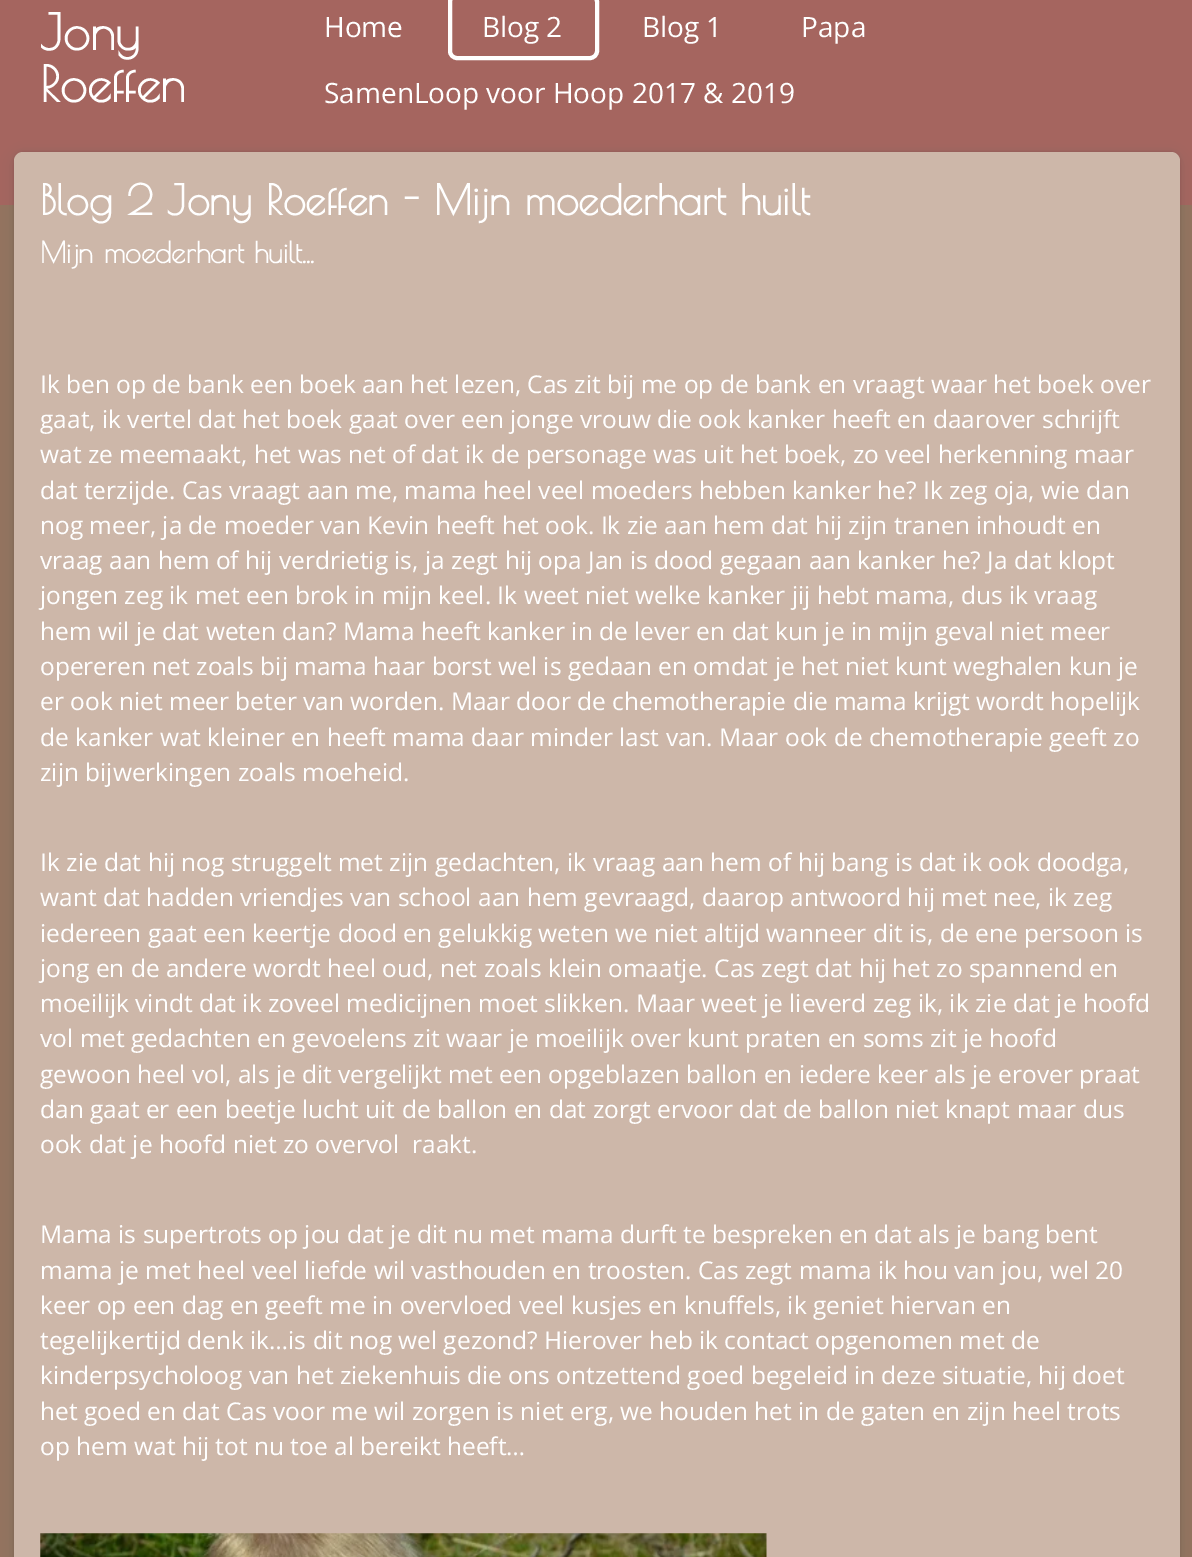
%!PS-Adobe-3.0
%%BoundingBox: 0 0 1192 1557
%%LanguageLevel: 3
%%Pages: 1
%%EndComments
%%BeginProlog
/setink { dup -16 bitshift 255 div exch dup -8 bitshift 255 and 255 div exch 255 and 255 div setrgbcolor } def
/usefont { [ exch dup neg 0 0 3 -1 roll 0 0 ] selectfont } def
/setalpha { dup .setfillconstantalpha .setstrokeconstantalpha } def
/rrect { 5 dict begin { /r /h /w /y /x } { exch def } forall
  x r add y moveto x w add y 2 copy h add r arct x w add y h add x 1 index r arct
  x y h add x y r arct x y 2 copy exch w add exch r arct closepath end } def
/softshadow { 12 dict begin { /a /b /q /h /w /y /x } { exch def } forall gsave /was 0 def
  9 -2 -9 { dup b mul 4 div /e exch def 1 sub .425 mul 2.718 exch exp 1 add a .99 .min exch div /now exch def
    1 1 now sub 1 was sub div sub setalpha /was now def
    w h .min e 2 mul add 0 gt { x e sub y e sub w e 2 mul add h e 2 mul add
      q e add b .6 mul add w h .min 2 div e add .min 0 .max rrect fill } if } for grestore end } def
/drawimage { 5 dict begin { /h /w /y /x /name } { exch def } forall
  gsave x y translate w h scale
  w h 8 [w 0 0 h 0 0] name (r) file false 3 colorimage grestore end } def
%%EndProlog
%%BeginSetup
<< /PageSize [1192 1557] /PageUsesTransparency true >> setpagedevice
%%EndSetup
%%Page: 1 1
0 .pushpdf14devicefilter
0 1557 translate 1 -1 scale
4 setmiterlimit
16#94735F setink
0 0 1192 1557 rectfill
16#A5655F setink
0 0 1192 205 rectfill
/PoiretOne-Bold 49 usefont
16#FFFFFF setink
40 50 moveto (Jony) show
40 102 moveto (Roeffen) show
/OpenSans-Regular 28 usefont
324 37 moveto (Home) show
4 setlinewidth
450 -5 147 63 7 rrect stroke
[
    [(Blog 2) 482 37]
    [(Blog 1) 642 37]
    [(Papa) 801 37]
    [(SamenLoop voor Hoop 2017 & 2019) 324 103]
] { aload pop moveto show } forall
16#000000 setink
14 152 1166 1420 9 2 0.1 softshadow
14 156 1166 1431 9 7 0.07 softshadow
16#CDB7A9 setink
14 152 1166 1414 9 rrect fill
/PoiretOne-Bold 41.25 usefont
16#FFFFFF setink
40 215 moveto (Blog 2 Jony Roeffen - Mijn moederhart huilt) show
/PoiretOne-Bold 28.75 usefont
40 263 moveto (Mijn moederhart huilt...) show
/OpenSans-Regular 24.5 usefont
[
    [(Ik ben op de bank een boek aan het lezen, Cas zit bij me op de bank en vraagt waar het boek over) 40 393]
    [(gaat, ik vertel dat het boek gaat over een jonge vrouw die ook kanker heeft en daarover schrijft) 40 428]
    [(wat ze meemaakt, het was net of dat ik de personage was uit het boek, zo veel herkenning maar) 40 463]
    [(dat terzijde. Cas vraagt aan me, mama heel veel moeders hebben kanker he? Ik zeg oja, wie dan) 40 499]
    [(nog meer, ja de moeder van Kevin heeft het ook. Ik zie aan hem dat hij zijn tranen inhoudt en) 40 534]
    [(vraag aan hem of hij verdrietig is, ja zegt hij opa Jan is dood gegaan aan kanker he? Ja dat klopt) 40 569]
    [(jongen zeg ik met een brok in mijn keel. Ik weet niet welke kanker jij hebt mama, dus ik vraag) 40 604]
    [(hem wil je dat weten dan? Mama heeft kanker in de lever en dat kun je in mijn geval niet meer) 40 640]
    [(opereren net zoals bij mama haar borst wel is gedaan en omdat je het niet kunt weghalen kun je) 40 675]
    [(er ook niet meer beter van worden. Maar door de chemotherapie die mama krijgt wordt hopelijk) 40 710]
    [(de kanker wat kleiner en heeft mama daar minder last van. Maar ook de chemotherapie geeft zo) 40 746]
    [(zijn bijwerkingen zoals moeheid.) 40 781]
    [(Ik zie dat hij nog struggelt met zijn gedachten, ik vraag aan hem of hij bang is dat ik ook doodga,) 40 871]
    [(want dat hadden vriendjes van school aan hem gevraagd, daarop antwoord hij met nee, ik zeg) 40 906]
    [(iedereen gaat een keertje dood en gelukkig weten we niet altijd wanneer dit is, de ene persoon is) 40 942]
    [(jong en de andere wordt heel oud, net zoals klein omaatje. Cas zegt dat hij het zo spannend en) 40 977]
    [(moeilijk vindt dat ik zoveel medicijnen moet slikken. Maar weet je lieverd zeg ik, ik zie dat je hoofd) 40 1012]
    [(vol met gedachten en gevoelens zit waar je moeilijk over kunt praten en soms zit je hoofd) 40 1047]
    [(gewoon heel vol, als je dit vergelijkt met een opgeblazen ballon en iedere keer als je erover praat) 40 1083]
    [(dan gaat er een beetje lucht uit de ballon en dat zorgt ervoor dat de ballon niet knapt maar dus) 40 1118]
    [(ook dat je hoofd niet zo overvol  raakt.) 40 1153]
    [(Mama is supertrots op jou dat je dit nu met mama durft te bespreken en dat als je bang bent) 40 1243]
    [(mama je met heel veel liefde wil vasthouden en troosten. Cas zegt mama ik hou van jou, wel 20) 40 1279]
    [(keer op een dag en geeft me in overvloed veel kusjes en knuffels, ik geniet hiervan en) 40 1314]
    [(tegelijkertijd denk ik…is dit nog wel gezond? Hierover heb ik contact opgenomen met de) 40 1349]
    [(kinderpsycholoog van het ziekenhuis die ons ontzettend goed begeleid in deze situatie, hij doet) 40 1384]
    [(het goed en dat Cas voor me wil zorgen is niet erg, we houden het in de gaten en zijn heel trots) 40 1420]
    [(op hem wat hij tot nu toe al bereikt heeft…) 40 1455]
] { aload pop moveto show } forall
(img1.raw) 40 1533 727 24 drawimage
.poppdf14devicefilter showpage
%%EOF
